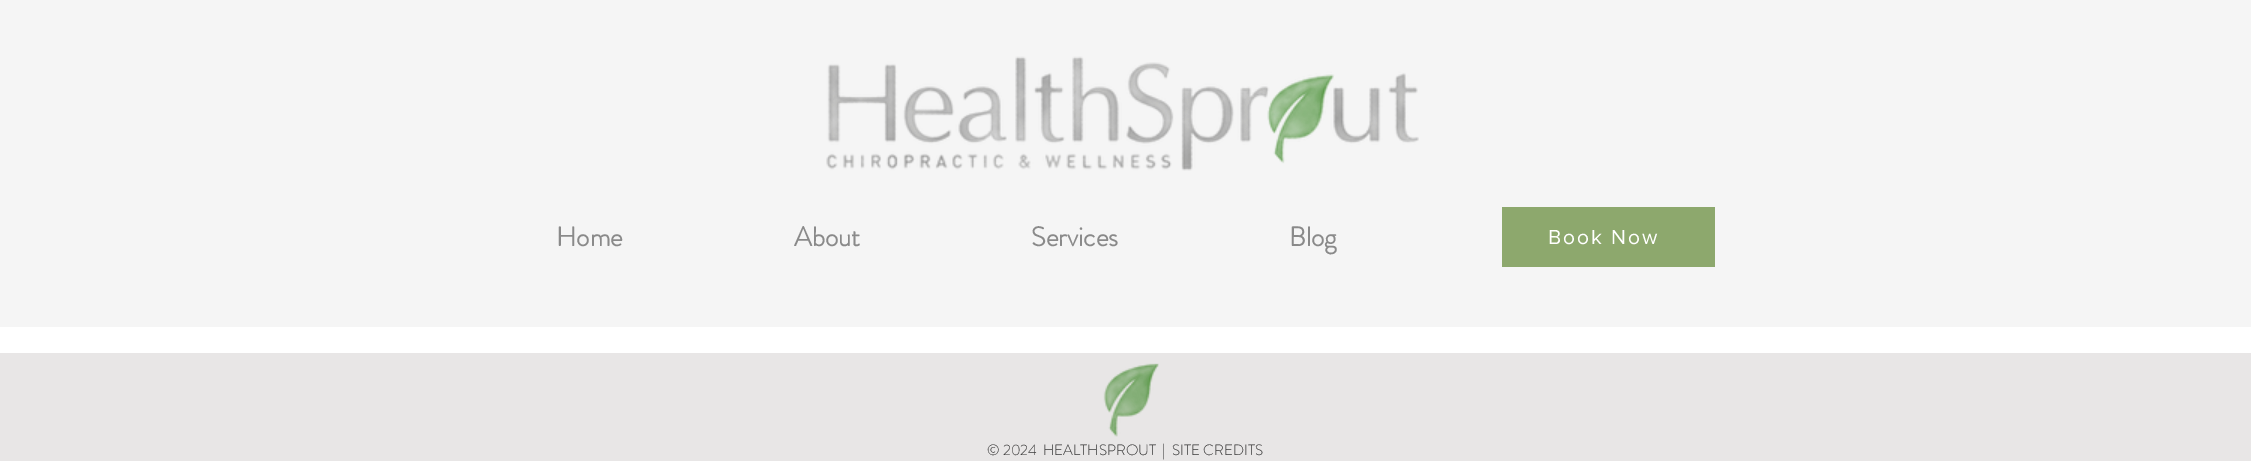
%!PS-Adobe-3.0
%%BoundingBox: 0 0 2251 461
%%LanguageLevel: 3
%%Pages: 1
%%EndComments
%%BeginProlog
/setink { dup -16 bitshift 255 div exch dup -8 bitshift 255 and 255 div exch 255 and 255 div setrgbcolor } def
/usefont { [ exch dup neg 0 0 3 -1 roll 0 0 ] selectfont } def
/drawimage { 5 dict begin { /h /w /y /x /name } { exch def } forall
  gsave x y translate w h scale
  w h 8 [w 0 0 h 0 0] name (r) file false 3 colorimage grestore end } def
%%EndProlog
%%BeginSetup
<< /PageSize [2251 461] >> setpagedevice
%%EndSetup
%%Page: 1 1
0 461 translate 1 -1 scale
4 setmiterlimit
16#FFFFFF setink
0 0 2251 461 rectfill
16#F5F5F5 setink
0 0 2251 327 rectfill
(img1.raw) 826 56 593 115 drawimage
/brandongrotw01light-Bold 27 usefont
16#8A8A8A setink
[
    [(Home) 556 246]
    [(About) 794 246]
    [(Services) 1031 246]
    [(Blog) 1289 246]
] { aload pop moveto show } forall
16#8DA86D setink
1502 207 213 60 rectfill
/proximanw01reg-Regular 21 usefont
16#FFFFFF setink
1548 244 moveto 2 0 (Book Now) ashow
16#E8E6E6 setink
0 353 2251 108 rectfill
(img2.raw) 1103 363 56 74 drawimage
/brandongrotw01light-Light 15 usefont
16#383838 setink
[
    [(© 2024) 987 455]
    [(HEALTHSPROUT  |) 1043 455]
    [(SITE CREDITS) 1172 455]
] { aload pop moveto show } forall
showpage
%%EOF
